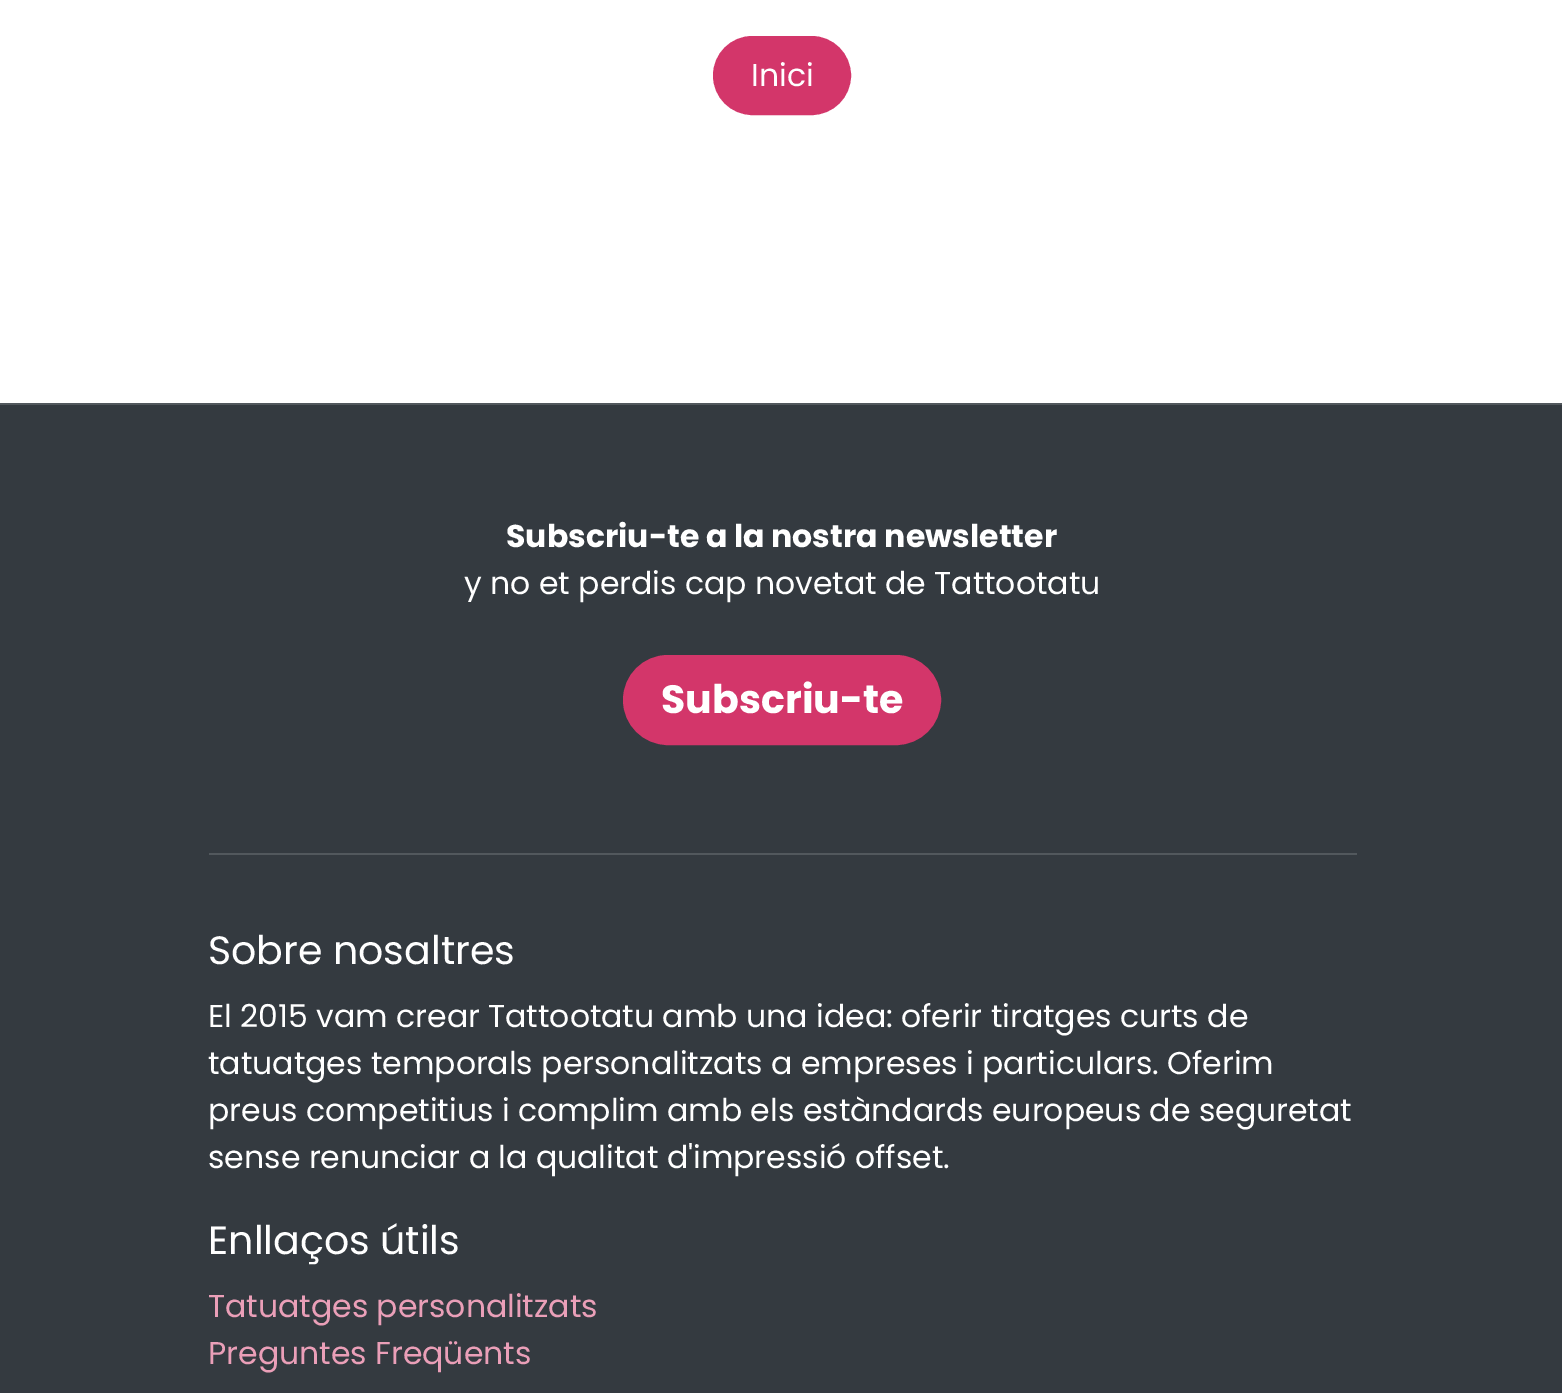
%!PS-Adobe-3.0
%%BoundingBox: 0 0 1562 1393
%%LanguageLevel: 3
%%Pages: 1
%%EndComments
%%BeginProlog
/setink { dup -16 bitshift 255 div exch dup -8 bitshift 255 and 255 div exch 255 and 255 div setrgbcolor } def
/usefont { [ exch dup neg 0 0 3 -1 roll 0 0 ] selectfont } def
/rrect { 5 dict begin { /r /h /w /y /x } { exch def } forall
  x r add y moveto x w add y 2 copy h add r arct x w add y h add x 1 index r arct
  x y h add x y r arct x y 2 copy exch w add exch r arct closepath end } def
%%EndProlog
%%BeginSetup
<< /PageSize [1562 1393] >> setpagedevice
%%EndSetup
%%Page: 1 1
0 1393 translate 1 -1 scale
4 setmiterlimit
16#FFFFFF setink
0 0 1562 1393 rectfill
16#D3366A setink
714 37 136 77 38.5 rrect gsave fill grestore
2 setlinewidth
stroke
/Poppins-Regular 31.5 usefont
16#FFFFFF setink
751 86 moveto (Inici) show
16#343A40 setink
0 405 1562 988 rectfill
16#52585D setink
0 403 1562 2 rectfill
/Poppins-Bold 31.5 usefont
16#FFFFFF setink
506 547 moveto (Subscriu-te a la nostra newsletter) show
/Poppins-Regular 31.5 usefont
464 594 moveto (y no et perdis cap novetat de Tattootatu) show
16#D3366A setink
624 656 316 88 44 rrect gsave fill grestore
stroke
/Poppins-Bold 39.5 usefont
16#FFFFFF setink
661 713 moveto (Subscriu-te) show
16#52585D setink
209 853 1148 2 rectfill
/Poppins-Regular 39.5 usefont
16#FFFFFF setink
208 964 moveto (Sobre nosaltres) show
/Poppins-Regular 31.5 usefont
[
    [(El 2015 vam crear Tattootatu amb una idea: oferir tiratges curts de) 208 1027]
    [(tatuatges temporals personalitzats a empreses i particulars. Oferim) 208 1074]
    [(preus competitius i complim amb els estàndards europeus de seguretat) 208 1121]
    [(sense renunciar a la qualitat d'impressió offset.) 208 1168]
] { aload pop moveto show } forall
/Poppins-Regular 39.5 usefont
208 1254 moveto (Enllaços útils) show
/Poppins-Regular 31.5 usefont
16#EA9FB8 setink
208 1317 moveto (Tatuatges personalitzats) show
208 1364 moveto (Preguntes Freqüents) show
showpage
%%EOF
